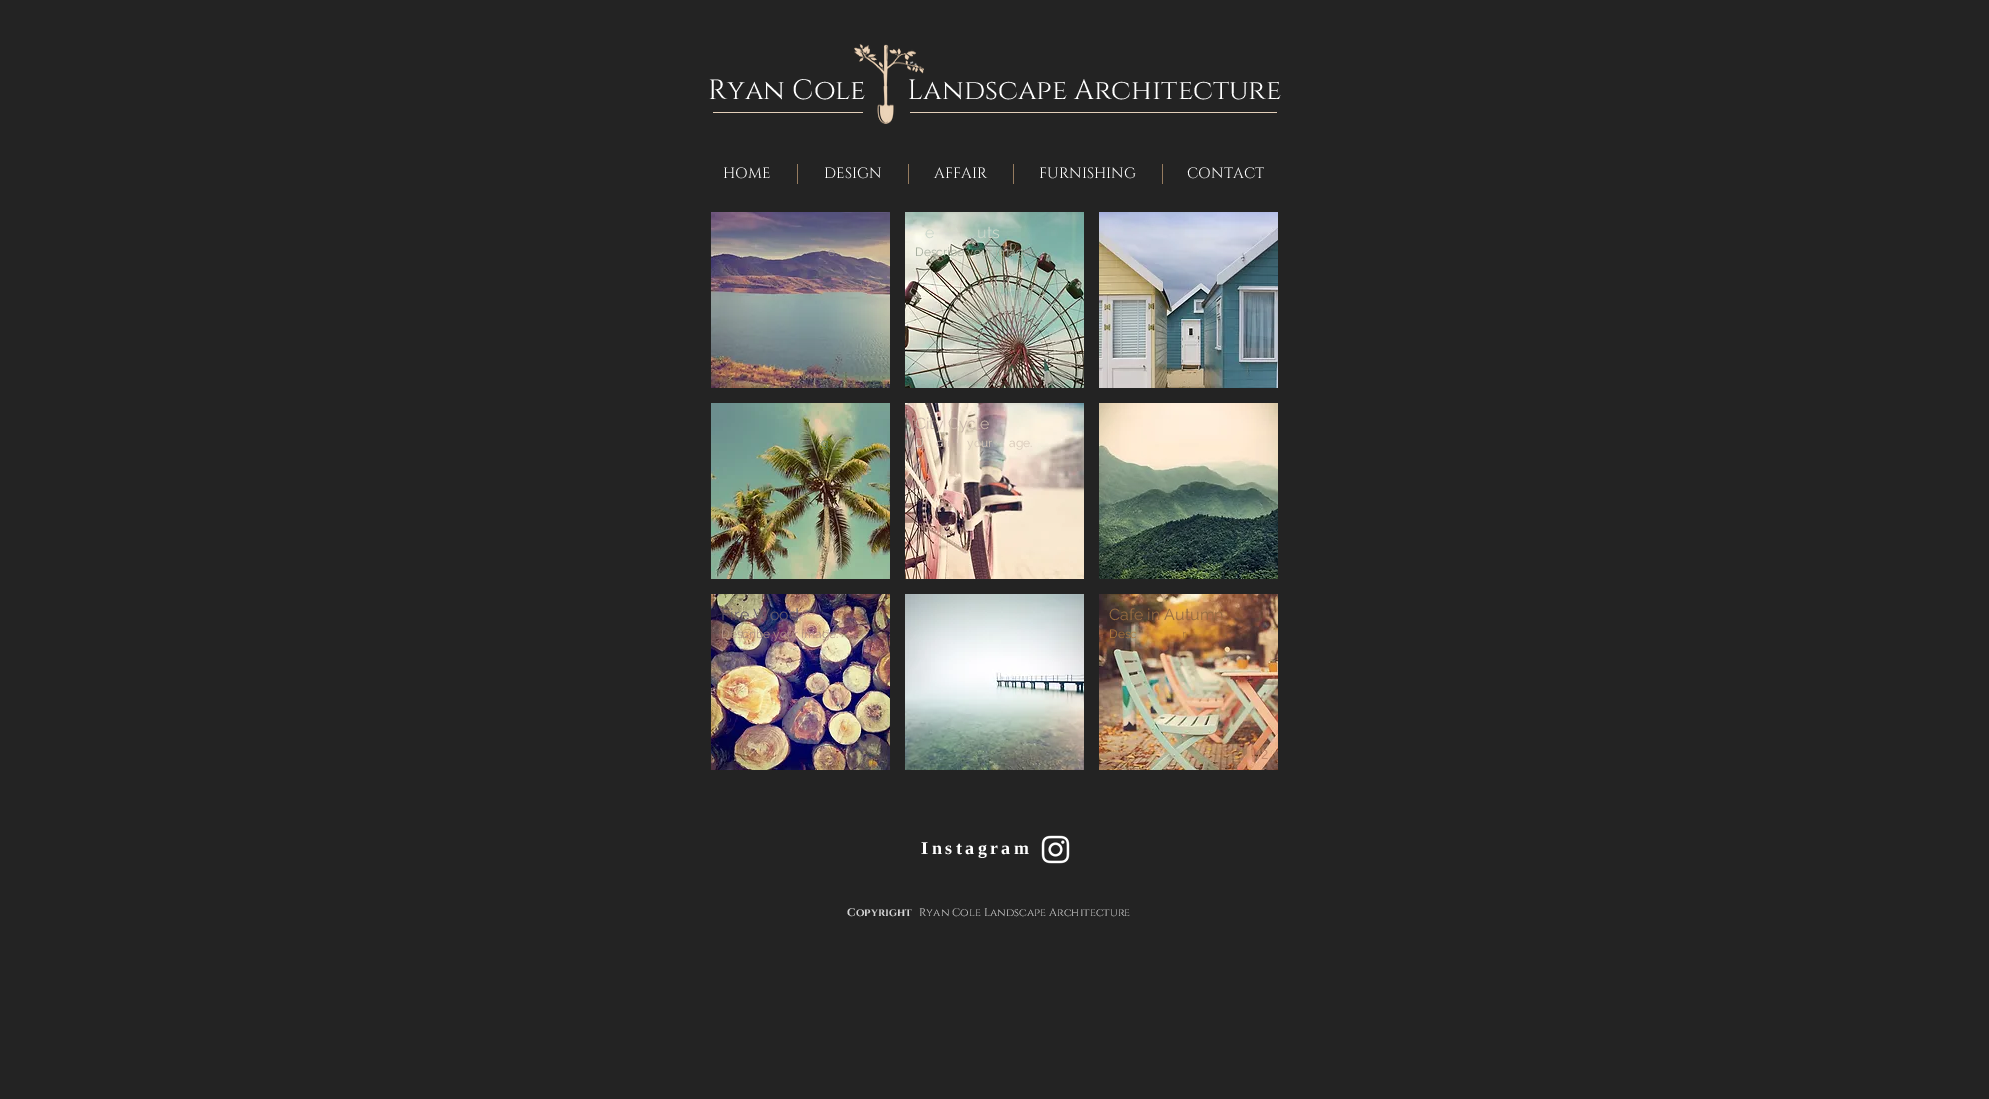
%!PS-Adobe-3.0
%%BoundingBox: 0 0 1989 1099
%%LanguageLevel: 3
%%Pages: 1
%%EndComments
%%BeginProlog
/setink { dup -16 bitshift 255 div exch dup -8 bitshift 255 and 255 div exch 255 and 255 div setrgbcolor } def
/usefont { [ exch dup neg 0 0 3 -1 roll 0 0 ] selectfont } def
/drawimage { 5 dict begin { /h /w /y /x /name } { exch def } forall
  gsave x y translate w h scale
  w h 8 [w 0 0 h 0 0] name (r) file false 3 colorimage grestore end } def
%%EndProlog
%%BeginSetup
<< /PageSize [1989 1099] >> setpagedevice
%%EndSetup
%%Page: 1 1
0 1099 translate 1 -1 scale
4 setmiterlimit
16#232323 setink
0 0 1989 1099 rectfill
/Cinzel-Regular 28 usefont
16#FFFFFF setink
708 99 moveto (Ryan Cole      Landscape Architecture) show
(img1.raw) 854 44 70 80 drawimage
16#E3CFB9 setink
713 112 150 1 rectfill
910 112 367 1 rectfill
/Cinzel-Regular 15 usefont
16#FFFFFF setink
723 178 moveto (HOME) show
16#957B5F setink
797 164 1 20 rectfill
16#FFFFFF setink
824 178 moveto (DESIGN) show
16#957B5F setink
908 164 1 20 rectfill
16#FFFFFF setink
934 178 moveto (AFFAIR) show
16#957B5F setink
1013 164 1 20 rectfill
16#FFFFFF setink
1039 178 moveto (FURNISHING) show
16#957B5F setink
1162 164 1 20 rectfill
16#FFFFFF setink
1187 178 moveto (CONTACT) show
(img2.raw) 711 212 179 176 drawimage
/Raleway-Regular 12 usefont
16#9A9494 setink
828 256 moveto (e.) show
(img3.raw) 905 212 179 176 drawimage
/Raleway-Regular 16 usefont
16#CCD8CC setink
925 238 moveto (e) show
977 238 moveto (uts) show
/Raleway-Regular 12 usefont
16#A6AE9F setink
915 256 moveto (Describe your image.) show
(img4.raw) 1099 212 179 176 drawimage
(img5.raw) 711 403 179 176 drawimage
16#749177 setink
821 447 moveto (g) show
(img6.raw) 905 403 179 176 drawimage
/Raleway-Regular 16 usefont
16#CAB8AC setink
915 429 moveto (City Cycle) show
/Raleway-Regular 12 usefont
16#D6C7B8 setink
[
    [(D) 915 447]
    [(cri) 936 447]
    [(your) 967 447]
    [(age.) 1009 447]
] { aload pop moveto show } forall
(img7.raw) 1099 403 179 176 drawimage
(img8.raw) 711 594 179 176 drawimage
/Raleway-Regular 16 usefont
16#655B6A setink
721 620 moveto (Fire Wood) show
/Raleway-Regular 12 usefont
16#B09285 setink
721 638 moveto (Describe your image.) show
(img9.raw) 905 594 179 176 drawimage
(img10.raw) 1099 594 179 176 drawimage
/Raleway-Regular 16 usefont
16#956B41 setink
1109 620 moveto (Cafe in Autumn) show
/Raleway-Regular 12 usefont
16#AC773C setink
[
    [(Desc) 1109 638]
    [(r) 1182 638]
    [(.) 1224 638]
] { aload pop moveto show } forall
/LiberationSans-Regular 13 usefont
16#C48A6A setink
1257 759 moveto (/2) show
/LiberationSerif-Bold 18 usefont
16#FFFFFF setink
921 854 moveto 3.5 0 (Instagram) ashow
(img11.raw) 1041 835 29 29 drawimage
/Cinzel-Bold 11 usefont
16#D5D5D5 setink
847 916 moveto (Copyright) show
/Cinzel-Regular 11 usefont
919 916 moveto (Ryan Cole Landscape Architecture) show
showpage
%%EOF
